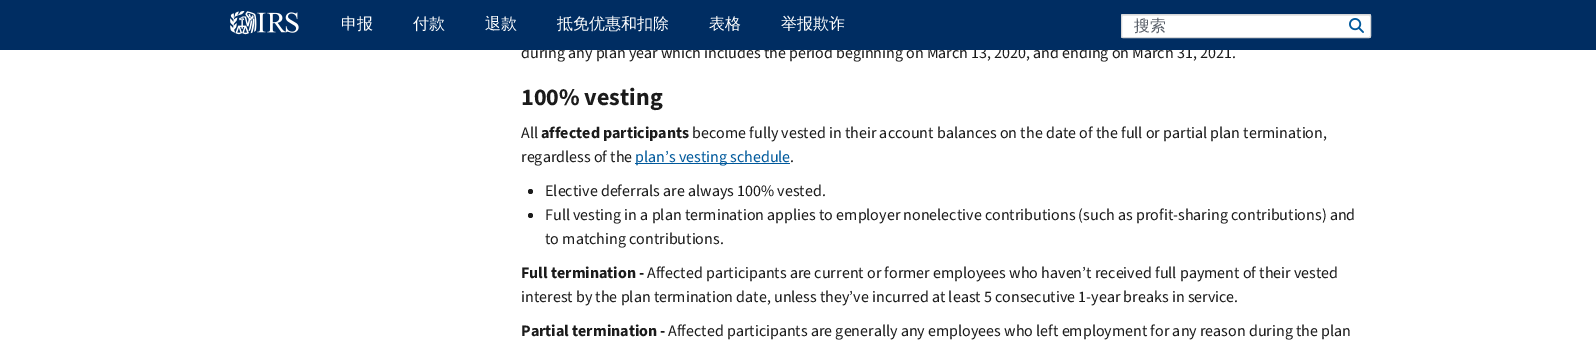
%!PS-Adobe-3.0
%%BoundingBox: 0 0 1596 357
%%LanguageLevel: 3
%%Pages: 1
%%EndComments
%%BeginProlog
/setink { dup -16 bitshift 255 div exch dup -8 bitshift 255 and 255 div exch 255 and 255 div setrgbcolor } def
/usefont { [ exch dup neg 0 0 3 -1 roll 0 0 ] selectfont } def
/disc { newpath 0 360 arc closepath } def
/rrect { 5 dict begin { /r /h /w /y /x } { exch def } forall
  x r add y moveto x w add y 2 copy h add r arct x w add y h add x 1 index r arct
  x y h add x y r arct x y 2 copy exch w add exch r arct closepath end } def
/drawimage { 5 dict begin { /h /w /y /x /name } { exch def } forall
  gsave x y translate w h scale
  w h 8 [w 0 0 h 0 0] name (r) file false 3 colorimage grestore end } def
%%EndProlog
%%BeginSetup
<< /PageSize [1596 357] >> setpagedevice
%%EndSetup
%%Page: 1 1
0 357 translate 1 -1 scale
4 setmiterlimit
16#FFFFFF setink
0 0 1596 357 rectfill
/SourceSans3-Regular 16 usefont
16#1B1B1B setink
521 58 moveto (during any plan year which includes the period beginning on March 13, 2020, and ending on March 31, 2021.) show
16#002D62 setink
0 0 1596 50 rectfill
(img1.raw) 230 11 69 24 drawimage
/WenQuanYiZenHei-Medium 16 usefont
16#FFFFFF setink
[
    [(申报) 341 29]
    [(付款) 413 29]
    [(退款) 485 29]
    [(抵免优惠和扣除) 557 29]
    [(表格) 709 29]
    [(举报欺诈) 781 29]
] { aload pop moveto show } forall
1121 14 250 24 2 rrect fill
16#ECECEC setink
1123 16 moveto 1369 16 lineto 1370 16 1370 16 1370 17 curveto 1370 15 lineto 1123 15 lineto 1122 15 1122 16 1122 17 curveto 1122 16 1122 16 1123 16 curveto closepath fill
16#D6D7D9 setink
1121.5 14.5 249 23 1.5 rrect stroke
16#5B616B setink
1134 31 moveto (搜索) show
(img2.raw) 1349 18 15 15 drawimage
/SourceSans3-Bold 24 usefont
16#1B1B1B setink
521 105 moveto (100% vesting) show
/SourceSans3-Regular 16 usefont
521 138 moveto (All) show
/SourceSans3-Bold 16 usefont
541 138 moveto (affected participants) show
/SourceSans3-Regular 16 usefont
692 138 moveto (become fully vested in their account balances on the date of the full or partial plan termination,) show
521 162 moveto (regardless of the) show
16#00599C setink
635 163 155 1 rectfill
635 162 moveto (plan’s vesting schedule) show
16#1B1B1B setink
790 162 moveto (.) show
530.5 191.5 2.5 disc fill
545 196 moveto (Elective deferrals are always 100% vested.) show
530.5 215.5 2.5 disc fill
545 220 moveto (Full vesting in a plan termination applies to employer nonelective contributions \(such as profit-sharing contributions\) and) show
545 244 moveto (to matching contributions.) show
/SourceSans3-Bold 16 usefont
521 278 moveto (Full termination -) show
/SourceSans3-Regular 16 usefont
647 278 moveto (Affected participants are current or former employees who haven’t received full payment of their vested) show
521 302 moveto (interest by the plan termination date, unless they’ve incurred at least 5 consecutive 1-year breaks in service.) show
/SourceSans3-Bold 16 usefont
521 336 moveto (Partial termination -) show
/SourceSans3-Regular 16 usefont
668 336 moveto (Affected participants are generally any employees who left employment for any reason during the plan) show
showpage
%%EOF
